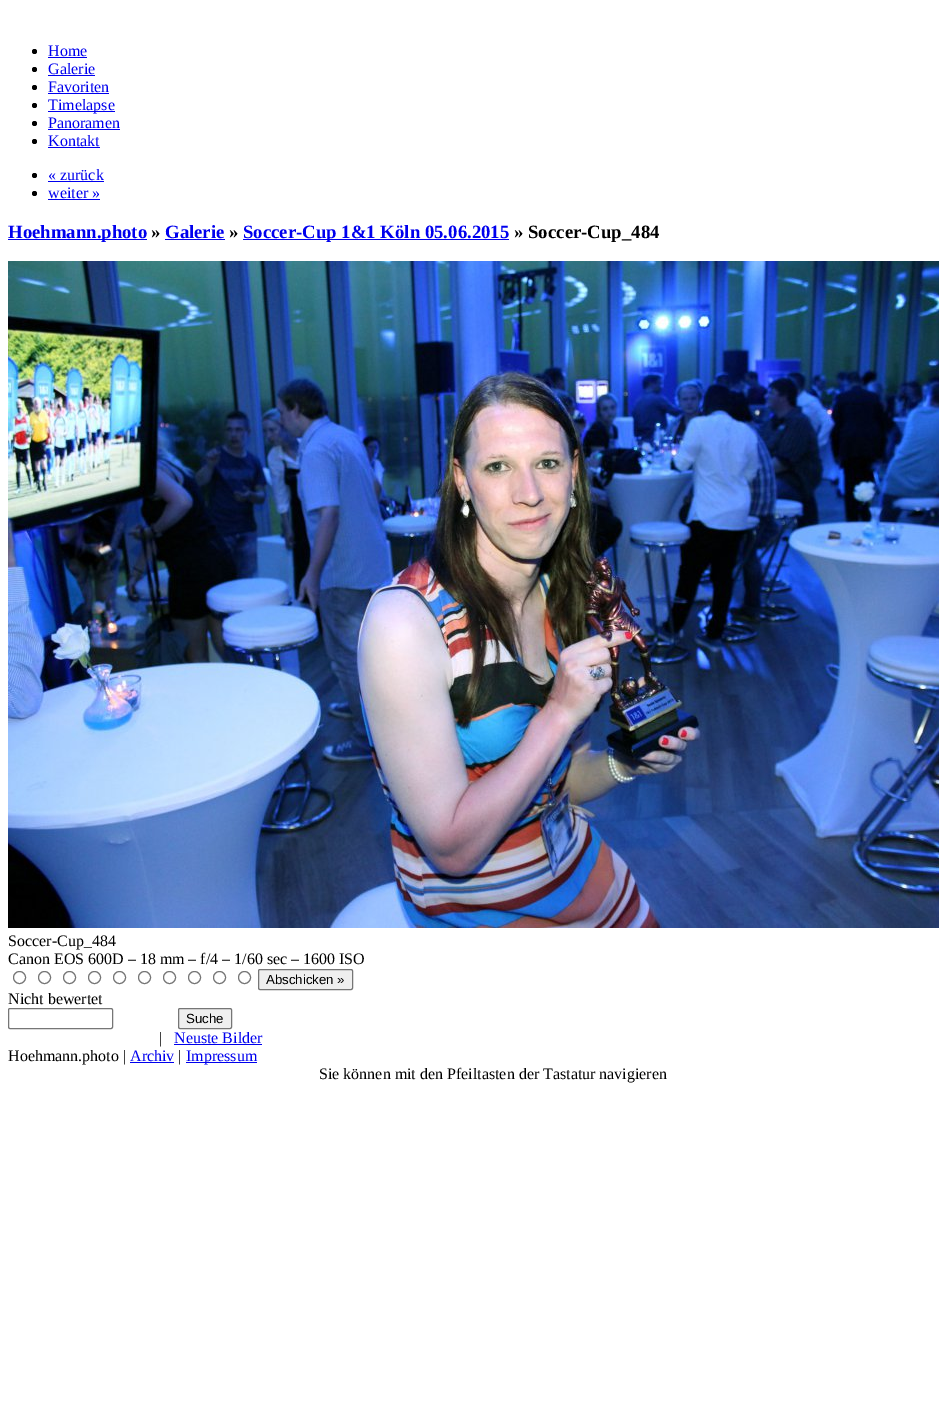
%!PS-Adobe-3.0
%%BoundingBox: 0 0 939 1417
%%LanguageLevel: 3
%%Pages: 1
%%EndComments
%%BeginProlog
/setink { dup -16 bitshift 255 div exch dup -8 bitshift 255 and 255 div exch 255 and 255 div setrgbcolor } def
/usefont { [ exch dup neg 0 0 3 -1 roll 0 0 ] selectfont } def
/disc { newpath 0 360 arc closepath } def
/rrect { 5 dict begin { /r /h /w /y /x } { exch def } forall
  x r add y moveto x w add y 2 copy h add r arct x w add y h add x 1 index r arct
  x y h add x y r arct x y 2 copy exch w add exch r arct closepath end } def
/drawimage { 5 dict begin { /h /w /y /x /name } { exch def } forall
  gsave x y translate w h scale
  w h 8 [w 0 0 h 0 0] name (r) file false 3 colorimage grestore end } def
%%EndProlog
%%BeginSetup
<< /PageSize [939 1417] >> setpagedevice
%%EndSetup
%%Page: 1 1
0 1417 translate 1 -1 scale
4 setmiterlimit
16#FFFFFF setink
0 0 939 1417 rectfill
16#000000 setink
34.5 51.5 2.5 disc fill
/LiberationSerif-Regular 16 usefont
16#0000EE setink
48 56 moveto (Home) show
48 57 39 1 rectfill
16#000000 setink
34.5 69.5 2.5 disc fill
16#0000EE setink
48 74 moveto (Galerie) show
48 75 47 1 rectfill
16#000000 setink
34.5 87.5 2.5 disc fill
16#0000EE setink
48 92 moveto (Favoriten) show
48 93 61 1 rectfill
16#000000 setink
34.5 105.5 2.5 disc fill
16#0000EE setink
48 111 67 1 rectfill
48 110 moveto (Timelapse) show
16#000000 setink
34.5 123.5 2.5 disc fill
16#0000EE setink
48 128 moveto (Panoramen) show
48 129 72 1 rectfill
16#000000 setink
34.5 141.5 2.5 disc fill
16#0000EE setink
48 146 moveto (Kontakt) show
48 147 52 1 rectfill
16#000000 setink
34.5 175.5 2.5 disc fill
16#0000EE setink
48 180 moveto (« zurück) show
48 181 56 1 rectfill
16#000000 setink
34.5 193.5 2.5 disc fill
16#0000EE setink
48 198 moveto (weiter ») show
48 199 52 1 rectfill
8 239 139 1 rectfill
/LiberationSerif-Bold 18.75 usefont
8 238 moveto (Hoehmann.photo) show
16#000000 setink
151 238 moveto (») show
16#0000EE setink
165 238 moveto (Galerie) show
165 239 60 1 rectfill
16#000000 setink
229 238 moveto (») show
16#0000EE setink
243 239 266 1 rectfill
243 238 moveto (Soccer-Cup 1&1 Köln 05.06.2015) show
16#000000 setink
514 238 moveto (» Soccer-Cup_484) show
(img1.raw) 8 261 931 667 drawimage
/LiberationSerif-Regular 16 usefont
8 946 moveto (Soccer-Cup_484) show
8 964 moveto (Canon EOS 600D – 18 mm – f/4 – 1/60 sec – 1600 ISO) show
16#767676 setink
19.5 977.5 6 disc stroke
44.5 977.5 6 disc stroke
69.5 977.5 6 disc stroke
94.5 977.5 6 disc stroke
119.5 977.5 6 disc stroke
144.5 977.5 6 disc stroke
169.5 977.5 6 disc stroke
194.5 977.5 6 disc stroke
219.5 977.5 6 disc stroke
244.5 977.5 6 disc stroke
16#EFEFEF setink
258.5 969.5 94 20 1.5 rrect gsave fill grestore
16#767676 setink
stroke
/LiberationSans-Regular 13.25 usefont
16#000000 setink
266 984 moveto (Abschicken ») show
/LiberationSerif-Regular 16 usefont
8 1004 moveto (Nicht bewertet) show
16#767676 setink
8.5 1008.5 104 20 1.5 rrect stroke
16#EFEFEF setink
178.5 1008.5 53 20 1.5 rrect gsave fill grestore
16#767676 setink
stroke
/LiberationSans-Regular 13.25 usefont
16#000000 setink
186 1023 moveto (Suche) show
/LiberationSerif-Regular 16 usefont
159 1043 moveto (|) show
16#0000EE setink
174 1043 moveto (Neuste Bilder) show
174 1044 88 1 rectfill
16#000000 setink
8 1061 moveto (Hoehmann.photo |) show
16#0000EE setink
130 1061 moveto (Archiv) show
130 1062 44 1 rectfill
16#000000 setink
178 1061 moveto (|) show
16#0000EE setink
186 1062 71 1 rectfill
186 1061 moveto (Impressum) show
16#000000 setink
319 1079 moveto (Sie können mit den Pfeiltasten der Tastatur navigieren) show
showpage
%%EOF
